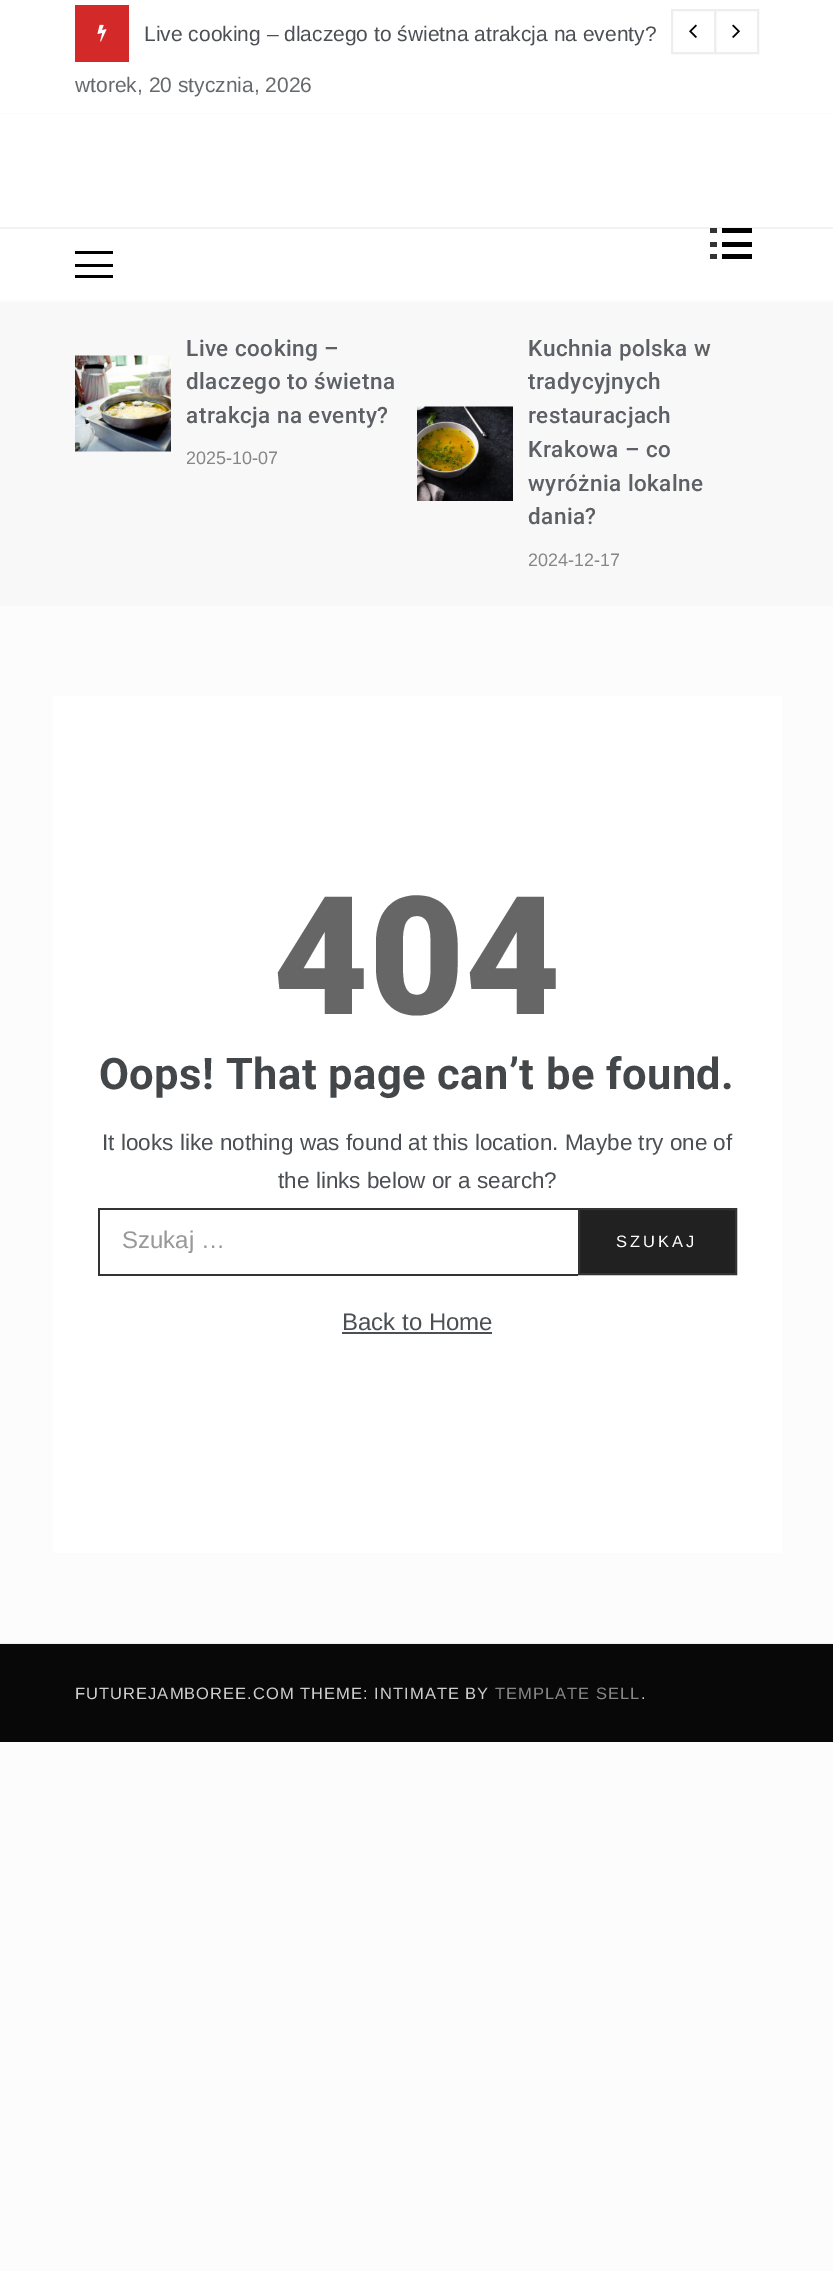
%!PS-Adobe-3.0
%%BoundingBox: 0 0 833 2271
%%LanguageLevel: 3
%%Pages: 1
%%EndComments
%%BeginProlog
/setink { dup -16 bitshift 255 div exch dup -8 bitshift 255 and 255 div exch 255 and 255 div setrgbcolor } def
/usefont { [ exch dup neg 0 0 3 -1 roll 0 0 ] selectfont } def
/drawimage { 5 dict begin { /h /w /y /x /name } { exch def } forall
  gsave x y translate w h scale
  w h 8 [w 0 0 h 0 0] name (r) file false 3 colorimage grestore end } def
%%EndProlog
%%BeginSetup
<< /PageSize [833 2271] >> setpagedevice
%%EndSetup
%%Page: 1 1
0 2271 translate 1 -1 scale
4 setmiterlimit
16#FCFCFC setink
0 0 833 2271 rectfill
16#FFFFFF setink
0 0 833 113 rectfill
16#D42929 setink
75 5 54 57 rectfill
(img1.raw) 97 24 10 18 drawimage
/LiberationSans-Regular 21 usefont
16#4C4F53 setink
144 41 moveto (Live cooking – dlaczego to świetna atrakcja na eventy?) show
16#EEEEEE setink
2 setlinewidth
672 10 43 43 rectstroke
(img2.raw) 689 24 8 14 drawimage
715 10 43 43 rectstroke
(img3.raw) 732 24 8 14 drawimage
16#67696D setink
75 92 moveto (wtorek, 20 stycznia, 2026) show
[
    [0 114 833 186 16#FFFFFF]
    [0 227 833 2 16#F2F2F2]
    [722 228 30 5 16#000000]
    [710 228 7 5 16#333333]
    [722 242 30 5 16#000000]
    [710 242 7 5 16#333333]
    [722 254 30 5 16#000000]
    [710 254 7 5 16#333333]
    [75 251 38 3 16#000000]
    [75 264 38 3 16#000000]
    [75 275 38 3 16#000000]
    [0 302 833 304 16#F8F8F8]
] { aload pop setink rectfill } forall
(img4.raw) 75 355 96 97 drawimage
/Roboto-Medium 22.5 usefont
16#5D6064 setink
186 356 moveto 0.45 0 (Live cooking –) ashow
186 389 moveto 0.45 0 (dlaczego to świetna) ashow
186 423 moveto 0.45 0 (atrakcja na eventy?) ashow
/LiberationSans-Regular 18 usefont
16#868686 setink
186 464 moveto (2025-10-07) show
(img5.raw) 417 406 96 95 drawimage
/Roboto-Medium 22.5 usefont
16#5D6064 setink
528 356 moveto 0.45 0 (Kuchnia polska w) ashow
528 389 moveto 0.45 0 (tradycyjnych) ashow
528 423 moveto 0.45 0 (restauracjach) ashow
528 457 moveto 0.45 0 (Krakowa – co) ashow
528 491 moveto 0.45 0 (wyróżnia lokalne) ashow
528 524 moveto 0.45 0 (dania?) ashow
/LiberationSans-Regular 18 usefont
16#868686 setink
528 566 moveto (2024-12-17) show
16#FFFFFF setink
53 696 729 857 rectfill
/Roboto-Black 165 usefont
16#666666 setink
273 1014 moveto 0.45 0 (404) ashow
/Roboto-Bold 43.5 usefont
16#444749 setink
99 1089 moveto 0.45 0 (Oops! That page can’t be found.) ashow
/LiberationSans-Regular 22.5 usefont
16#4C4F53 setink
102 1150 moveto (It looks like nothing was found at this location. Maybe try one of) show
278 1188 moveto (the links below or a search?) show
[
    [98 1208 480 2 16#333333]
    [98 1274 480 2 16#333333]
    [98 1208 2 67 16#333333]
] { aload pop setink rectfill } forall
/LiberationSans-Regular 24 usefont
16#999999 setink
122 1248 moveto (Szukaj …) show
16#212121 setink
579 1209 moveto 736 1209 lineto 736 1274 lineto 579 1274 lineto closepath gsave fill grestore
16#333333 setink
stroke
/LiberationSans-Regular 16.5 usefont
16#FFFFFF setink
616 1247 moveto 3 0 (SZUKAJ) ashow
/LiberationSans-Regular 24 usefont
16#4C4F53 setink
342 1330 moveto (Back to Home) show
[
    [342 1332 150 2 16#4C4F53]
    [0 1643 833 1 16#F1F1F1]
    [0 1644 833 98 16#080808]
] { aload pop setink rectfill } forall
/LiberationSans-Regular 16.5 usefont
16#CECECE setink
75 1699 moveto 1.05 0 (FUTUREJAMBOREE.COM THEME: INTIMATE BY) ashow
16#868686 setink
495 1699 moveto 1.05 0 (TEMPLATE SELL) ashow
16#CECECE setink
641 1699 moveto 1.05 0 (.) ashow
showpage
%%EOF
